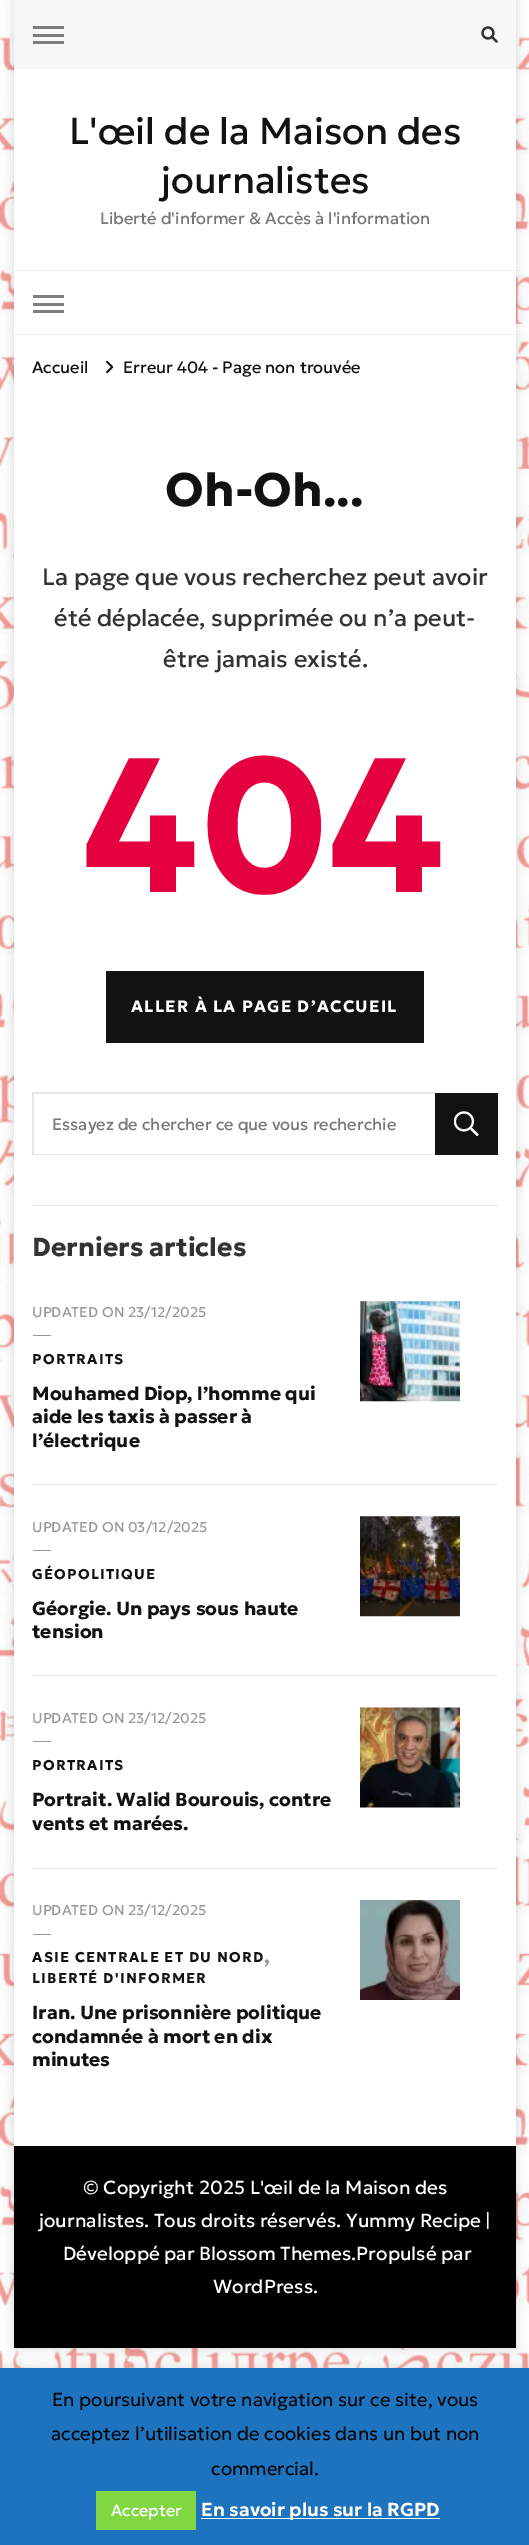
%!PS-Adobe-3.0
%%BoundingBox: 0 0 529 2545
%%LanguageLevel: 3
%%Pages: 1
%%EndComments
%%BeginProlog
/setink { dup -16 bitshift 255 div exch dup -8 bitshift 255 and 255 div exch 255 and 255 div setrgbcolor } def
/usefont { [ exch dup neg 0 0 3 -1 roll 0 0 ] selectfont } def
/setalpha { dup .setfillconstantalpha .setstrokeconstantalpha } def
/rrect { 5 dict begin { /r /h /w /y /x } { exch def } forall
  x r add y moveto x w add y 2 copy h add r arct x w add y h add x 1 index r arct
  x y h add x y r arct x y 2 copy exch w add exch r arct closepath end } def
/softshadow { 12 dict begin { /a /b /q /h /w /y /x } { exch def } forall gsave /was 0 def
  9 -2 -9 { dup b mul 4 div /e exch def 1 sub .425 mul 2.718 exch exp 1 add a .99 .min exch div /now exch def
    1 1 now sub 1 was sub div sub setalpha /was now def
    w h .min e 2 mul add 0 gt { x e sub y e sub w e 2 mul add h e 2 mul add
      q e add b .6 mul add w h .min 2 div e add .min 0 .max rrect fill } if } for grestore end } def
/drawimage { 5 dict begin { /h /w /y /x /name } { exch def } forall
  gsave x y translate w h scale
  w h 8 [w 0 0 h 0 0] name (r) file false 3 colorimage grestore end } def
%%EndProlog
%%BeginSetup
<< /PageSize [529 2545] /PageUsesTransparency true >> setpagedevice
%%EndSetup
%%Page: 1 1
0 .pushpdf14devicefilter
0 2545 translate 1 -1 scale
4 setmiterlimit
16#FFFFFF setink
0 0 529 2545 rectfill
(img1.raw) 0 0 529 2368 drawimage
16#000000 setink
14 0 502 2348 0 6 0.16 softshadow
[
    [14 69 502 2077 16#FFFFFF]
    [14 0 502 69 16#F7F7F7]
    [33 26 31 3 16#7C7C7C]
    [33 34 31 3 16#7C7C7C]
    [33 41 31 3 16#7C7C7C]
] { aload pop setink rectfill } forall
(img2.raw) 481 26 17 17 drawimage
/Geologica-Regular 37.5 usefont
16#121212 setink
69 144 moveto (L'œil de la Maison des) show
161 193 moveto (journalistes) show
/Geologica-Regular 16.5 usefont
16#777777 setink
100 224 moveto (Liberté d'informer & Accès à l'information) show
[
    [14 270 502 1 16#EDEDED]
    [14 334 502 1 16#EDEDED]
    [33 295 31 3 16#808080]
    [33 303 31 3 16#808080]
    [33 310 31 3 16#808080]
] { aload pop setink rectfill } forall
16#121212 setink
32 373 moveto (Accueil) show
(img3.raw) 106 360 8 14 drawimage
123 373 moveto (Erreur 404 - Page non trouvée) show
/Geologica-Bold 47 usefont
165 506 moveto (Oh-Oh...) show
/Geologica-Regular 23.6 usefont
16#333333 setink
[
    [(La page que vous recherchez peut avoir) 42 585]
    [(été déplacée, supprimée ou n’a peut-) 54 626]
    [(être jamais existé.) 163 667]
] { aload pop moveto show } forall
/Geologica-Bold 191 usefont
16#E50040 setink
84 892 moveto (404) show
16#121212 setink
106 971 318 72 rectfill
/Geologica-Bold 16.5 usefont
16#FFFFFF setink
131 1012 moveto 1.25 0 (ALLER À LA PAGE D’ACCUEIL) ashow
16#E6E6E6 setink
32 1092 moveto 435 1092 lineto 435 1094 lineto 34 1094 lineto closepath fill
435 1155 moveto 32 1155 lineto 34 1154 lineto 435 1154 lineto closepath fill
0.1 setalpha
16#000000 setink
32 1155 moveto 32 1092 lineto 34 1094 lineto 34 1154 lineto closepath fill
/Geologica-Regular 16.5 usefont
1 setalpha
16#777777 setink
52 1130 moveto (Essayez de chercher ce que vous recherchie) show
16#121212 setink
435 1093 63 62 rectfill
(img4.raw) 454 1111 25 25 drawimage
16#E6E6E6 setink
33 1205 465 1 rectfill
/Geologica-Bold 26 usefont
16#333333 setink
32 1256 moveto (Derniers articles) show
16#E6E6E6 setink
33 1484 465 1 rectfill
/Geologica-Regular 14.2 usefont
16#999999 setink
32 1317 moveto (UPDATED ON 23/12/2025) show
33 1335 18 1 rectfill
/Geologica-Bold 14.2 usefont
16#121212 setink
32 1364 moveto 1.25 0 (PORTRAITS) ashow
/Geologica-Bold 18.9 usefont
[
    [(Mouhamed Diop, l’homme qui) 32 1400]
    [(aide les taxis à passer à) 32 1423]
    [(l’électrique) 32 1447]
] { aload pop moveto show } forall
(img5.raw) 360 1301 100 101 drawimage
16#E6E6E6 setink
33 1675 465 1 rectfill
/Geologica-Regular 14.2 usefont
16#999999 setink
32 1532 moveto (UPDATED ON 03/12/2025) show
33 1550 18 1 rectfill
/Geologica-Bold 14.2 usefont
16#121212 setink
32 1579 moveto 1.25 0 (GÉOPOLITIQUE) ashow
/Geologica-Bold 18.9 usefont
32 1615 moveto (Géorgie. Un pays sous haute) show
32 1638 moveto (tension) show
(img6.raw) 360 1516 100 101 drawimage
16#E6E6E6 setink
33 1868 465 1 rectfill
/Geologica-Regular 14.2 usefont
16#999999 setink
32 1723 moveto (UPDATED ON 23/12/2025) show
33 1741 18 1 rectfill
/Geologica-Bold 14.2 usefont
16#121212 setink
32 1770 moveto 1.25 0 (PORTRAITS) ashow
/Geologica-Bold 18.9 usefont
32 1806 moveto (Portrait. Walid Bourouis, contre) show
32 1830 moveto (vents et marées.) show
(img7.raw) 360 1707 100 101 drawimage
/Geologica-Regular 14.2 usefont
16#999999 setink
32 1915 moveto (UPDATED ON 23/12/2025) show
33 1934 18 1 rectfill
/Geologica-Bold 14.2 usefont
16#121212 setink
32 1962 moveto 1.25 0 (ASIE CENTRALE ET DU NORD) ashow
/Geologica-Bold 20 usefont
16#999999 setink
264 1963 moveto 1.25 0 (,) ashow
/Geologica-Bold 14.2 usefont
16#121212 setink
32 1983 moveto 1.25 0 (LIBERTÉ D'INFORMER) ashow
/Geologica-Bold 18.9 usefont
[
    [(Iran. Une prisonnière politique) 32 2019]
    [(condamnée à mort en dix) 32 2043]
    [(minutes) 32 2066]
] { aload pop moveto show } forall
(img8.raw) 360 1900 100 100 drawimage
16#000000 setink
14 2146 502 202 rectfill
/Geologica-Regular 18.9 usefont
16#FFFFFF setink
[
    [(© Copyright 2025 L'œil de la Maison des) 83 2194]
    [(journalistes. Tous droits réservés. Yummy Recipe |) 39 2227]
    [(Développé par Blossom Themes.Propulsé par) 63 2260]
    [(WordPress.) 213 2293]
] { aload pop moveto show } forall
16#ACABAB setink
0 2366 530 178 0 6 0.3 softshadow
16#1E73BE setink
0 2368 529 177 rectfill
/Geologica-Light 18.75 usefont
16#000000 setink
[
    [(En poursuivant votre navigation sur ce site, vous) 52 2406]
    [(acceptez l’utilisation de cookies dans un but non) 51 2440]
    [(commercial.) 211 2475]
] { aload pop moveto show } forall
16#81D742 setink
96 2491 100 39 rectfill
/Geologica-Regular 16.25 usefont
16#FFFFFF setink
111 2516 moveto (Accepter) show
201 2518 239 1 rectfill
/Geologica-SemiBold 18.75 usefont
201 2516 moveto (En savoir plus sur la RGPD) show
.poppdf14devicefilter showpage
%%EOF
